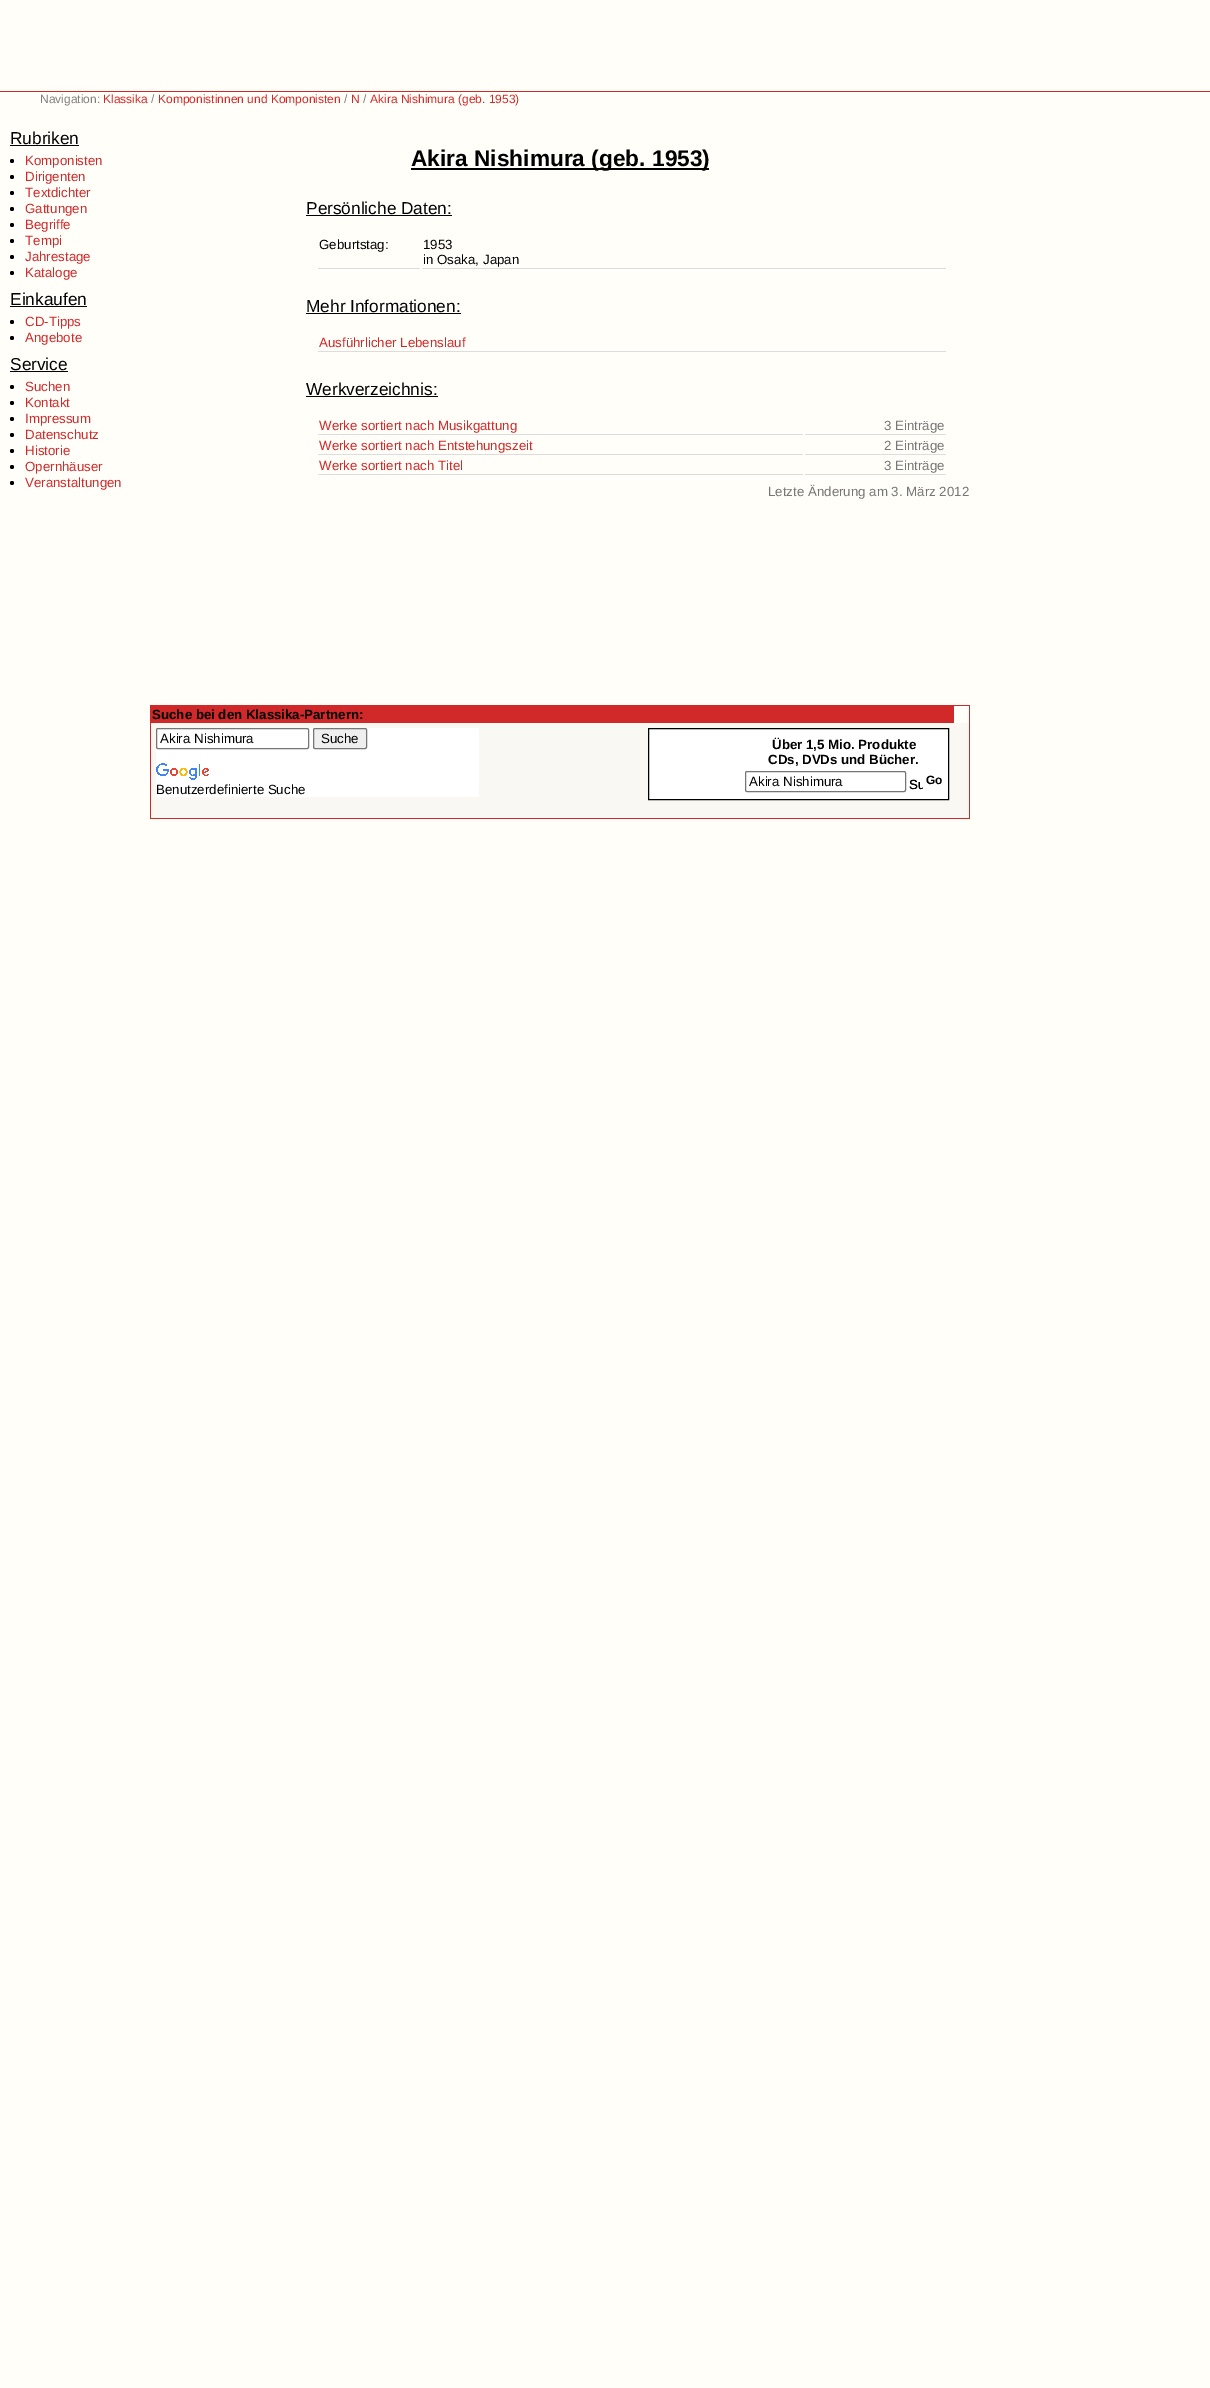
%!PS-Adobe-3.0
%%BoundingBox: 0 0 1210 2388
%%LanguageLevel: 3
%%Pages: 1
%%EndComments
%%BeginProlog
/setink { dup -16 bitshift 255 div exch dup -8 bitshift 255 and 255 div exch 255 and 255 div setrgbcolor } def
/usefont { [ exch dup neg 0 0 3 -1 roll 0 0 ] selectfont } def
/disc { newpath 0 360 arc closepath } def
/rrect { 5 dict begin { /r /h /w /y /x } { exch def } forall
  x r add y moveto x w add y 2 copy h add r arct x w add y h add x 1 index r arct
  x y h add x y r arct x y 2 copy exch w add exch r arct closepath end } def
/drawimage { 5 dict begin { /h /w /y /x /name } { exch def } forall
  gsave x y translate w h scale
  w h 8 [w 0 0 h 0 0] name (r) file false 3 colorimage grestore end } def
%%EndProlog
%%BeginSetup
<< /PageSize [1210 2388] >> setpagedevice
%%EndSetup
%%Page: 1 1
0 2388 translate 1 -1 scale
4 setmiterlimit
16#FFFEF9 setink
0 0 1210 2388 rectfill
16#D12929 setink
0 91 1210 1 rectfill
/LiberationSans-Regular 12 usefont
16#808080 setink
40 103 moveto (Navigation:) show
16#D12929 setink
103 103 moveto (Klassika) show
16#808080 setink
151 103 moveto (/) show
16#D12929 setink
158 103 moveto (Komponistinnen und Komponisten) show
16#808080 setink
344 103 moveto (/) show
16#D12929 setink
351 103 moveto (N) show
16#808080 setink
363 103 moveto (/) show
16#D12929 setink
370 103 moveto (Akira Nishimura \(geb. 1953\)) show
/LiberationSans-Regular 17.25 usefont
16#000000 setink
10 144 moveto (Rubriken) show
10 145 69 1 rectfill
12 161 2 disc fill
/LiberationSans-Regular 13.3 usefont
16#D12929 setink
25 165 moveto (Komponisten) show
16#000000 setink
12 177 2 disc fill
16#D12929 setink
25 181 moveto (Dirigenten) show
16#000000 setink
12 193 2 disc fill
16#D12929 setink
25 197 moveto (Textdichter) show
16#000000 setink
12 209 2 disc fill
16#D12929 setink
25 213 moveto (Gattungen) show
16#000000 setink
12 225 2 disc fill
16#D12929 setink
25 229 moveto (Begriffe) show
16#000000 setink
12 241 2 disc fill
16#D12929 setink
25 245 moveto (Tempi) show
16#000000 setink
12 257 2 disc fill
16#D12929 setink
25 261 moveto (Jahrestage) show
16#000000 setink
12 273 2 disc fill
16#D12929 setink
25 277 moveto (Kataloge) show
/LiberationSans-Regular 17.25 usefont
16#000000 setink
10 305 moveto (Einkaufen) show
10 306 77 1 rectfill
12 322 2 disc fill
/LiberationSans-Regular 13.3 usefont
16#D12929 setink
25 326 moveto (CD-Tipps) show
16#000000 setink
12 338 2 disc fill
16#D12929 setink
25 342 moveto (Angebote) show
/LiberationSans-Regular 17.25 usefont
16#000000 setink
10 370 moveto (Service) show
10 371 58 1 rectfill
12 387 2 disc fill
/LiberationSans-Regular 13.3 usefont
16#D12929 setink
25 391 moveto (Suchen) show
16#000000 setink
12 403 2 disc fill
16#D12929 setink
25 407 moveto (Kontakt) show
16#000000 setink
12 419 2 disc fill
16#D12929 setink
25 423 moveto (Impressum) show
16#000000 setink
12 435 2 disc fill
16#D12929 setink
25 439 moveto (Datenschutz) show
16#000000 setink
12 451 2 disc fill
16#D12929 setink
25 455 moveto (Historie) show
16#000000 setink
12 467 2 disc fill
16#D12929 setink
25 471 moveto (Opernhäuser) show
16#000000 setink
12 483 2 disc fill
16#D12929 setink
25 487 moveto (Veranstaltungen) show
16#000000 setink
411 168 298 2 rectfill
/LiberationSans-Bold 22.7 usefont
411 166 moveto (Akira Nishimura \(geb. 1953\)) show
/LiberationSans-Regular 17.25 usefont
306 214 moveto (Persönliche Daten:) show
306 215 146 1 rectfill
16#DDDDDD setink
318 268 102 1 rectfill
/LiberationSans-Regular 13.3 usefont
16#000000 setink
319 249 moveto (Geburtstag:) show
16#DDDDDD setink
422 268 524 1 rectfill
16#000000 setink
423 249 moveto (1953) show
423 264 moveto (in Osaka, Japan) show
/LiberationSans-Regular 17.25 usefont
306 312 moveto (Mehr Informationen:) show
306 313 155 1 rectfill
16#DDDDDD setink
318 351 628 1 rectfill
/LiberationSans-Regular 13.3 usefont
16#D12929 setink
319 347 moveto (Ausführlicher Lebenslauf) show
/LiberationSans-Regular 17.25 usefont
16#000000 setink
306 395 moveto (Werkverzeichnis:) show
306 396 132 1 rectfill
16#DDDDDD setink
318 434 485 1 rectfill
/LiberationSans-Regular 13.3 usefont
16#D12929 setink
319 430 moveto (Werke sortiert nach Musikgattung) show
16#DDDDDD setink
805 434 141 1 rectfill
16#777777 setink
884 430 moveto (3 Einträge) show
16#DDDDDD setink
318 454 485 1 rectfill
16#D12929 setink
319 450 moveto (Werke sortiert nach Entstehungszeit) show
16#DDDDDD setink
805 454 141 1 rectfill
16#777777 setink
884 450 moveto (2 Einträge) show
16#DDDDDD setink
318 474 485 1 rectfill
16#D12929 setink
319 470 moveto (Werke sortiert nach Titel) show
16#DDDDDD setink
805 474 141 1 rectfill
16#777777 setink
884 470 moveto (3 Einträge) show
768 496 moveto (Letzte Änderung am 3. März 2012) show
[
    [150 705 820 1 16#D12929]
    [969 705 1 114 16#D12929]
    [150 818 820 1 16#D12929]
    [150 705 1 114 16#D12929]
    [151 706 803 17 16#D12929]
] { aload pop setink rectfill } forall
/LiberationSans-Bold 13.3 usefont
16#000000 setink
152 719 moveto (Suche bei den Klassika-Partnern:) show
16#F9F8F3 setink
151 723 818 95 rectfill
16#FFFFFF setink
156 728 323 69 rectfill
16#767676 setink
156.5 728.5 152 20 1.5 rrect stroke
/LiberationSans-Regular 13.3 usefont
16#000000 setink
160 743 moveto (Akira Nishimura) show
16#EFEFEF setink
313.5 728.5 53 20 1.5 rrect gsave fill grestore
16#767676 setink
stroke
16#000000 setink
321 743 moveto (Suche) show
(img1.raw) 156 763 53 17 drawimage
156 794 moveto (Benutzerdefinierte Suche) show
16#FFFFFF setink
648.5 728.5 moveto 948.5 728.5 lineto 948.5 799.5 lineto 648.5 799.5 lineto closepath gsave fill grestore
16#000000 setink
stroke
/LiberationSans-Bold 13.3 usefont
772 749 moveto (Über 1,5 Mio. Produkte) show
768 764 moveto (CDs, DVDs und Bücher.) show
16#767676 setink
745.5 771.5 160 20 1.5 rrect stroke
/LiberationSans-Regular 13.3 usefont
16#000000 setink
749 786 moveto (Akira Nishimura) show
(img2.raw) 909 780 14 9 drawimage
gsave
909 777 14 14 rectclip
909 789 moveto (Su) show
grestore
/LiberationSans-Bold 12 usefont
926 784 moveto (Go) show
showpage
%%EOF
